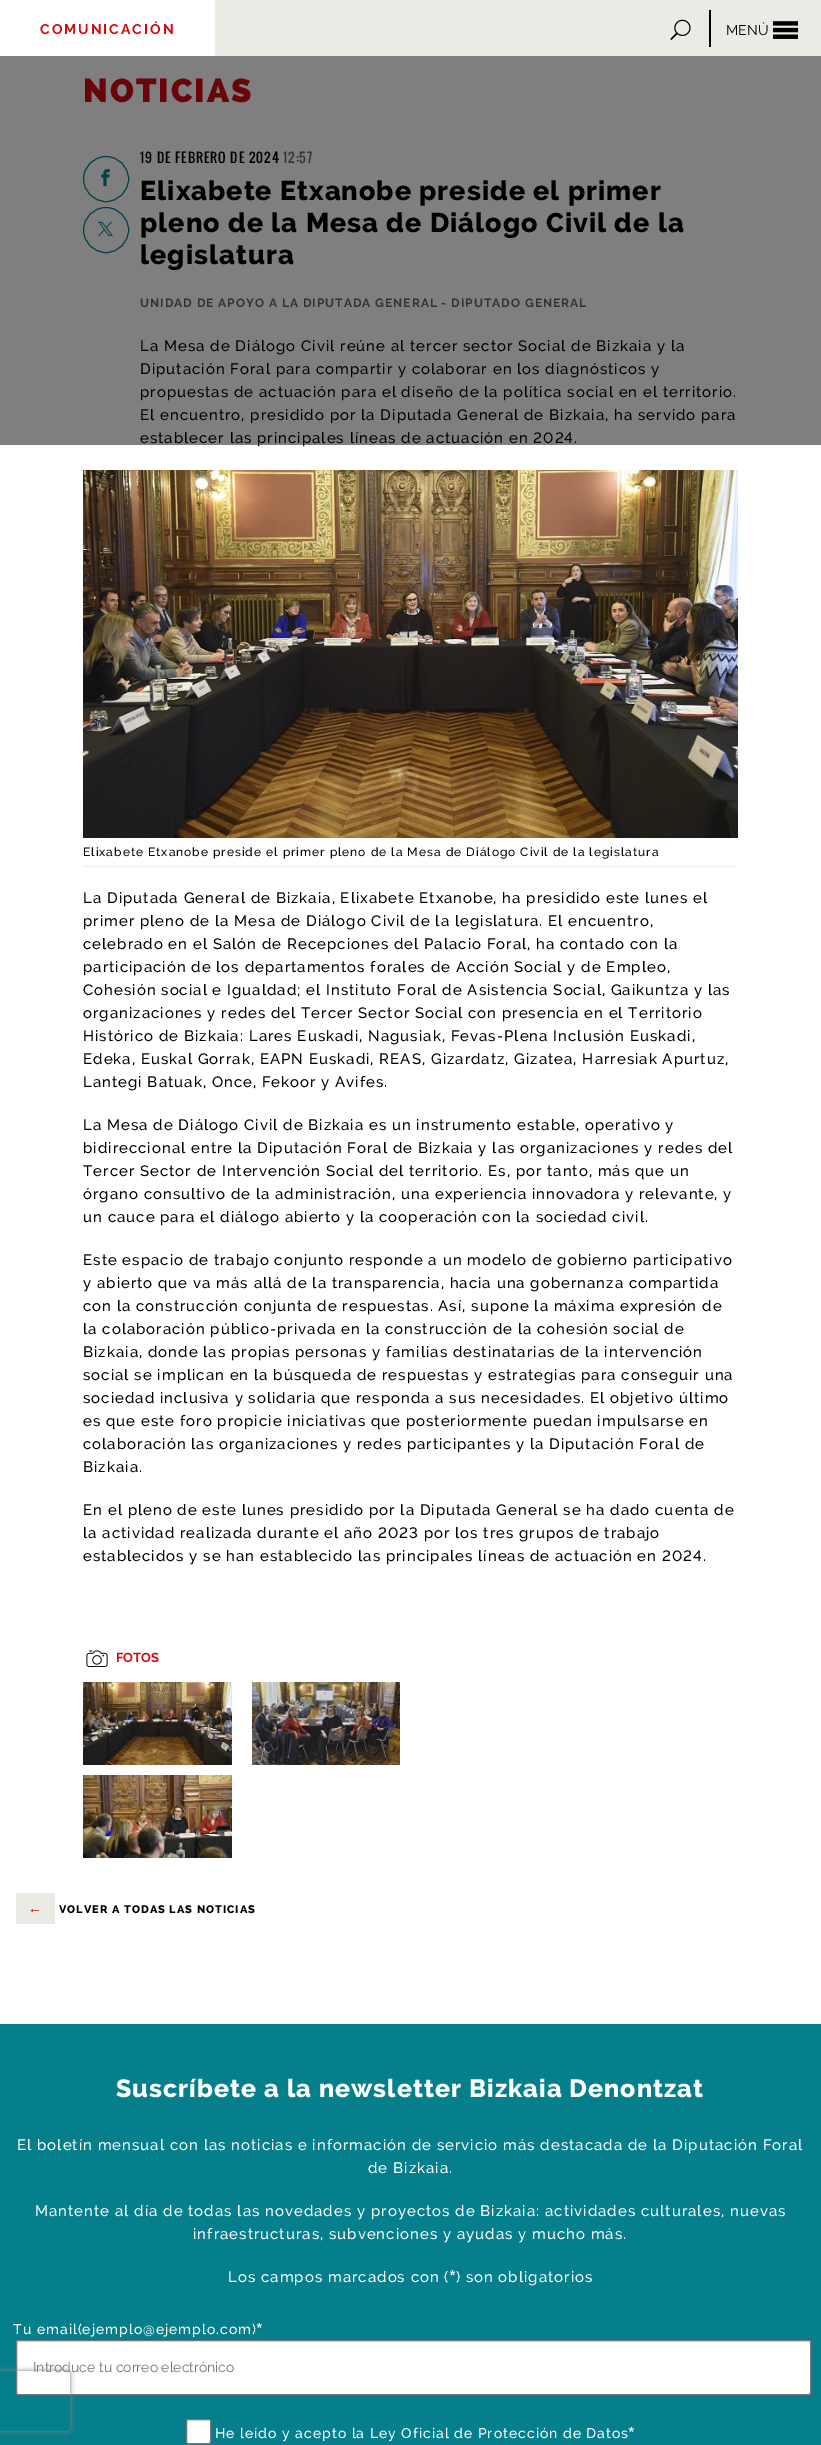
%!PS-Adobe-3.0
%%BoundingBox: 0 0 821 2445
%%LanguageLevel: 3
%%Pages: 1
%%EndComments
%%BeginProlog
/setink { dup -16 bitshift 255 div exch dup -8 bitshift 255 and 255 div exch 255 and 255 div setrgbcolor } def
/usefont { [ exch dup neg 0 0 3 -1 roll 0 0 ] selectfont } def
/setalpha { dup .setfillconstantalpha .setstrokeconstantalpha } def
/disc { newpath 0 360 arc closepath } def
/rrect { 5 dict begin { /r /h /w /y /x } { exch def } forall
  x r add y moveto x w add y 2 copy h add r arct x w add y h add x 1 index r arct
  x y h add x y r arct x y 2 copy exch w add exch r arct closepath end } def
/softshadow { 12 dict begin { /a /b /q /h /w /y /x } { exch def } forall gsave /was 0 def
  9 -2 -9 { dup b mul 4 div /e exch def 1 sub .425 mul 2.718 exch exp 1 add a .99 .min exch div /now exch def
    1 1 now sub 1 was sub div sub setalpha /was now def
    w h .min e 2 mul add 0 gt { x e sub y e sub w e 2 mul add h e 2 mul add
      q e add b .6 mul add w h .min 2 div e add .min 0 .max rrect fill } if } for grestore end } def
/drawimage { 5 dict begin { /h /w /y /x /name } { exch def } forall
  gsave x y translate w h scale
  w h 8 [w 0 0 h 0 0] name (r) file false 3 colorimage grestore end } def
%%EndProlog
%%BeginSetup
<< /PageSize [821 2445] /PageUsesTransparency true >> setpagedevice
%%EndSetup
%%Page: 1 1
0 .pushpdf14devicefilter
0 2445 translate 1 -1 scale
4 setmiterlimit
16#FFFFFF setink
0 0 821 2445 rectfill
/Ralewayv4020-Bold 14 usefont
16#D20A11 setink
40 34 moveto 2 0 (COMUNICACIÓN) ashow
16#EBEBE6 setink
215 0 606 56 rectfill
16#000000 setink
709 10 2 37 rectfill
(img1.raw) 670 19 21 21 drawimage
/Raleway-Regular 14 usefont
726 35 moveto (MENÚ) show
(img2.raw) 773 21 25 18 drawimage
/Raleway-Black 33 usefont
16#D20A11 setink
83 102 moveto 2 0 (NOTICIAS) ashow
16#067F8D setink
106 179 22.5 disc stroke
(img3.raw) 101 169 9 18 drawimage
106 230 22.5 disc stroke
(img4.raw) 98 221 15 15 drawimage
/Oswald-Regular 13 usefont
16#000000 setink
140 163 moveto 1 0 (19 DE FEBRERO DE 2024) ashow
16#666666 setink
283 163 moveto 1 0 (12:57) ashow
/Raleway-ExtraBold 27 usefont
16#000000 setink
140 200 moveto 1 0 (Elixabete Etxanobe preside el primer) ashow
140 232 moveto 1 0 (pleno de la Mesa de Diálogo Civil de la) ashow
140 264 moveto 1 0 (legislatura) ashow
/Ralewayv4020-Bold 12 usefont
16#666666 setink
140 307 moveto 1 0 (UNIDAD DE APOYO A LA DIPUTADA GENERAL - DIPUTADO GENERAL) ashow
/Raleway-Medium 15 usefont
16#000000 setink
140 351 moveto 1 0 (La Mesa de Diálogo Civil reúne al tercer sector Social de Bizkaia y la) ashow
140 374 moveto 1 0 (Diputación Foral para compartir y colaborar en los diagnósticos y) ashow
140 397 moveto 1 0 (propuestas de actuación para el diseño de la política social en el territorio.) ashow
140 420 moveto 1 0 (El encuentro, presidido por la Diputada General de Bizkaia, ha servido para) ashow
/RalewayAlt-Medium 15 usefont
140 443 moveto 1 0 (establecer las principales líneas de actuación en 2024.) ashow
0.5 setalpha
0 56 821 389 rectfill
1 setalpha
(img5.raw) 83 470 655 368 drawimage
16#EEEEEE setink
83 866 655 1 rectfill
/Raleway-Medium 12 usefont
16#000000 setink
83 856 moveto 1 0 (Elixabete Etxanobe preside el primer pleno de la Mesa de Diálogo Civil de la legislatura) ashow
/Raleway-Medium 15 usefont
83 903 moveto 1 0 (La Diputada General de Bizkaia, Elixabete Etxanobe, ha presidido este lunes el) ashow
83 926 moveto 1 0 (primer pleno de la Mesa de Diálogo Civil de la legislatura. El encuentro,) ashow
83 949 moveto 1 0 (celebrado en el Salón de Recepciones del Palacio Foral, ha contado con la) ashow
83 972 moveto 1 0 (participación de los departamentos forales de Acción Social y de Empleo,) ashow
83 995 moveto 1 0 (Cohesión social e Igualdad; el Instituto Foral de Asistencia Social, Gaikuntza y las) ashow
83 1018 moveto 1 0 (organizaciones y redes del Tercer Sector Social con presencia en el Territorio) ashow
83 1041 moveto 1 0 (Histórico de Bizkaia: Lares Euskadi, Nagusiak, Fevas-Plena Inclusión Euskadi,) ashow
83 1064 moveto 1 0 (Edeka, Euskal Gorrak, EAPN Euskadi, REAS, Gizardatz, Gizatea, Harresiak Apurtuz,) ashow
83 1087 moveto 1 0 (Lantegi Batuak, Once, Fekoor y Avifes.) ashow
83 1130 moveto 1 0 (La Mesa de Diálogo Civil de Bizkaia es un instrumento estable, operativo y) ashow
83 1153 moveto 1 0 (bidireccional entre la Diputación Foral de Bizkaia y las organizaciones y redes del) ashow
83 1176 moveto 1 0 (Tercer Sector de Intervención Social del territorio. Es, por tanto, más que un) ashow
83 1199 moveto 1 0 (órgano consultivo de la administración, una experiencia innovadora y relevante, y) ashow
83 1222 moveto 1 0 (un cauce para el diálogo abierto y la cooperación con la sociedad civil.) ashow
83 1265 moveto 1 0 (Este espacio de trabajo conjunto responde a un modelo de gobierno participativo) ashow
83 1288 moveto 1 0 (y abierto que va más allá de la transparencia, hacia una gobernanza compartida) ashow
83 1311 moveto 1 0 (con la construcción conjunta de respuestas. Así, supone la máxima expresión de) ashow
83 1334 moveto 1 0 (la colaboración público-privada en la construcción de la cohesión social de) ashow
83 1357 moveto 1 0 (Bizkaia, donde las propias personas y familias destinatarias de la intervención) ashow
83 1380 moveto 1 0 (social se implican en la búsqueda de respuestas y estrategias para conseguir una) ashow
83 1403 moveto 1 0 (sociedad inclusiva y solidaria que responda a sus necesidades. El objetivo último) ashow
83 1426 moveto 1 0 (es que este foro propicie iniciativas que posteriormente puedan impulsarse en) ashow
83 1449 moveto 1 0 (colaboración las organizaciones y redes participantes y la Diputación Foral de) ashow
83 1472 moveto 1 0 (Bizkaia.) ashow
83 1515 moveto 1 0 (En el pleno de este lunes presidido por la Diputada General se ha dado cuenta de) ashow
/RalewayAlt-Medium 15 usefont
83 1538 moveto 1 0 (la actividad realizada durante el año 2023 por los tres grupos de trabajo) ashow
83 1561 moveto 1 0 (establecidos y se han establecido las principales líneas de actuación en 2024.) ashow
(img6.raw) 86 1650 22 17 drawimage
/Ralewayv4020-Bold 13 usefont
16#D20A11 setink
116 1662 moveto (FOTOS) show
(img7.raw) 83 1682 149 83 drawimage
(img8.raw) 252 1682 148 83 drawimage
(img9.raw) 83 1775 149 83 drawimage
16#EBEBE6 setink
16 1893 39 31 rectfill
/LiberationSerif-Bold 14 usefont
16#D20A11 setink
28 1913 moveto 1 0 (←) ashow
/Raleway-ExtraBold 11 usefont
16#000000 setink
59 1913 moveto 1 0 (VOLVER A TODAS LAS NOTICIAS) ashow
16#057F8C setink
0 2024 821 421 rectfill
/Raleway-ExtraBold 25 usefont
16#FFFFFF setink
116 2097 moveto 1 0 (Suscríbete a la newsletter Bizkaia Denontzat) ashow
/Raleway-Medium 15 usefont
17 2150 moveto 1 0 (El boletín mensual con las noticias e información de servicio más destacada de la Diputación Foral) ashow
368 2173 moveto 1 0 (de Bizkaia.) ashow
35 2216 moveto 1 0 (Mantente al día de todas las novedades y proyectos de Bizkaia: actividades culturales, nuevas) ashow
193 2239 moveto 1 0 (infraestructuras, subvenciones y ayudas y mucho más.) ashow
228 2282 moveto 1 0 (Los campos marcados con \(*\) son obligatorios) ashow
/Raleway-Medium 14 usefont
13 2334 moveto 1 0 (Tu email\(ejemplo@ejemplo.com\)*) ashow
16.5 2340.5 794 54 1.5 rrect gsave fill grestore
16#767676 setink
stroke
/Raleway-Regular 14 usefont
16#757575 setink
33 2372 moveto (Introduce tu correo electrónico) show
gsave
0 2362 moveto 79 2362 lineto 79 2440 lineto 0 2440 lineto closepath -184 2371 moveto 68 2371 lineto 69 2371 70 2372 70 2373 curveto 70 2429 lineto 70 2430 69 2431 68 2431 curveto -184 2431 lineto -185 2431 -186 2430 -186 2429 curveto -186 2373 lineto -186 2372 -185 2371 -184 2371 curveto closepath eoclip newpath
16#808080 setink
-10 2371 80 60 2 2.5 1 softshadow
grestore
16#FFFFFF setink
186.5 2419.5 24 24 1.5 rrect gsave fill grestore
16#767676 setink
stroke
/Raleway-Medium 14 usefont
16#FFFFFF setink
215 2438 moveto 1 0 (He leído y acepto la Ley Oficial de Protección de Datos*) ashow
.poppdf14devicefilter showpage
%%EOF
